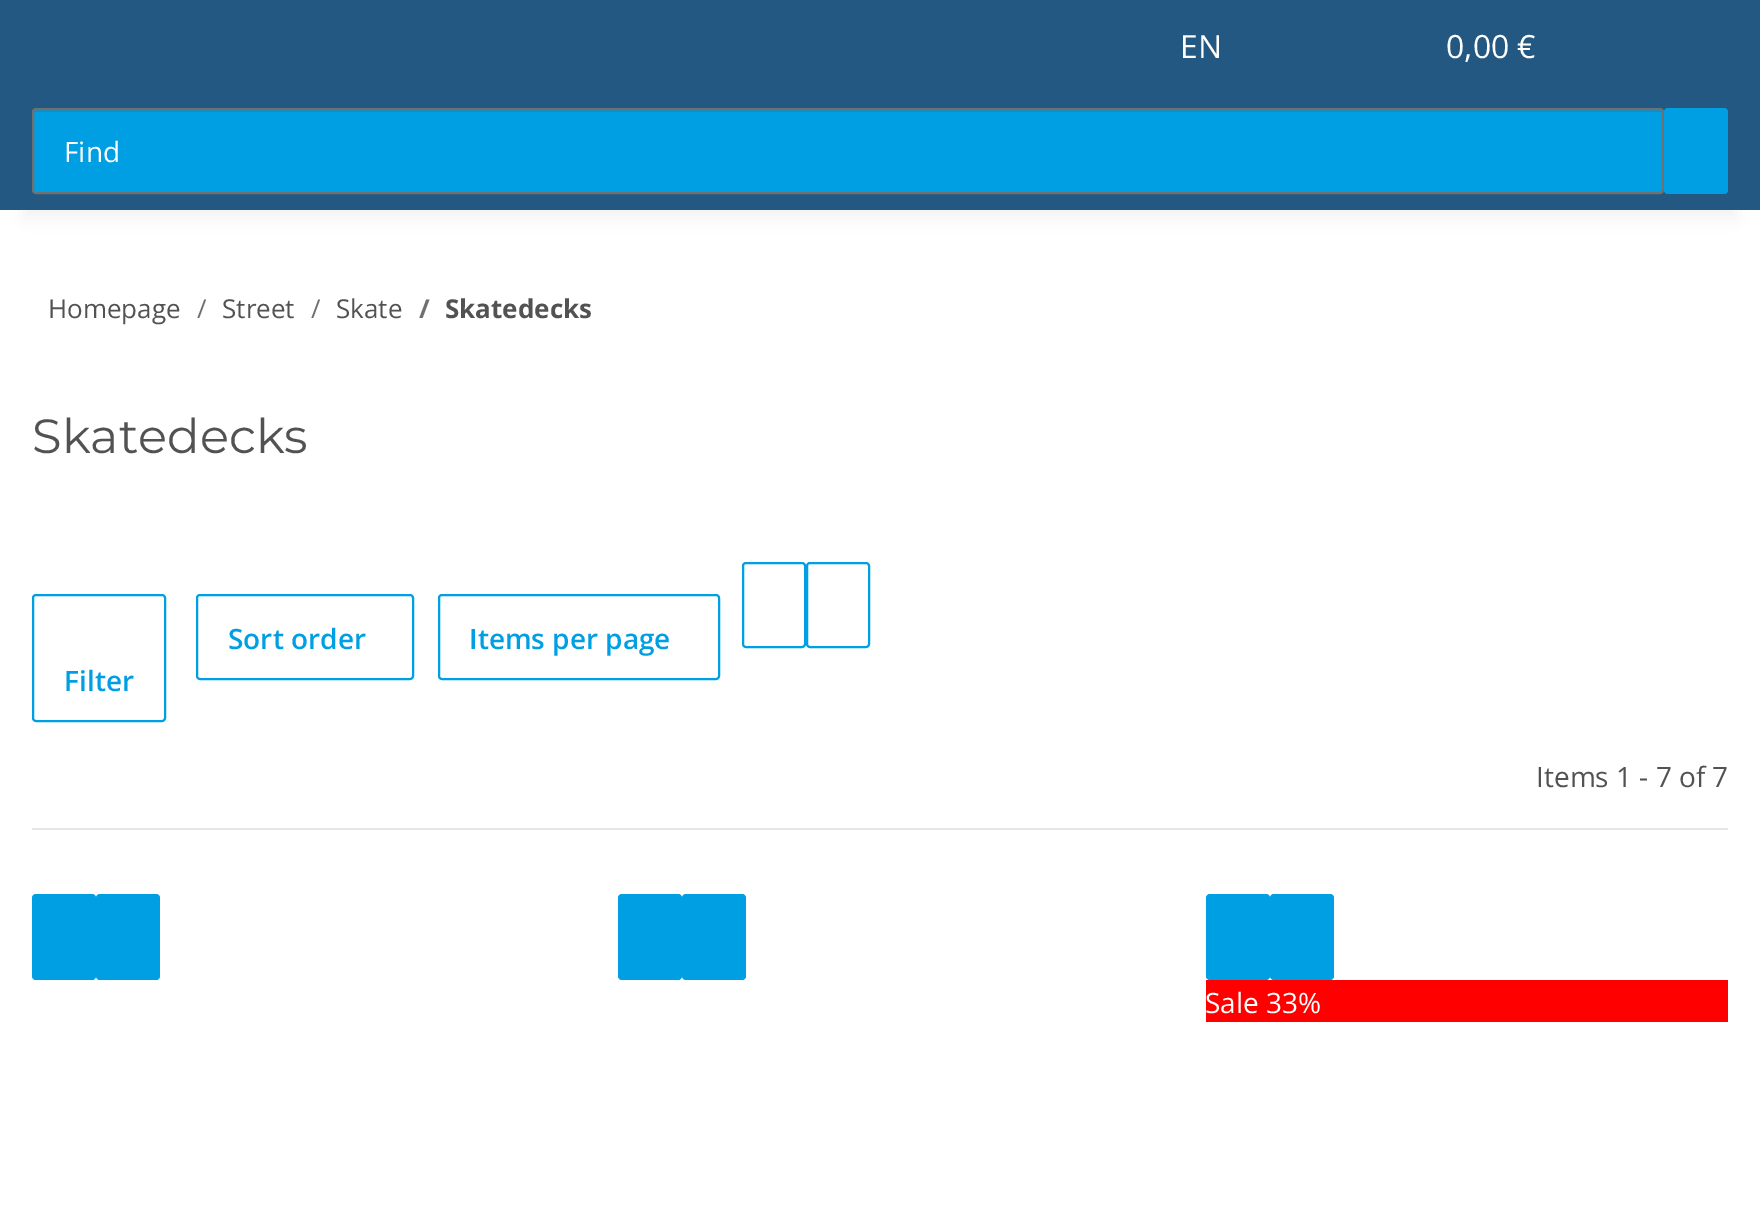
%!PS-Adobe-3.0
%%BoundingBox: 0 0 1760 1228
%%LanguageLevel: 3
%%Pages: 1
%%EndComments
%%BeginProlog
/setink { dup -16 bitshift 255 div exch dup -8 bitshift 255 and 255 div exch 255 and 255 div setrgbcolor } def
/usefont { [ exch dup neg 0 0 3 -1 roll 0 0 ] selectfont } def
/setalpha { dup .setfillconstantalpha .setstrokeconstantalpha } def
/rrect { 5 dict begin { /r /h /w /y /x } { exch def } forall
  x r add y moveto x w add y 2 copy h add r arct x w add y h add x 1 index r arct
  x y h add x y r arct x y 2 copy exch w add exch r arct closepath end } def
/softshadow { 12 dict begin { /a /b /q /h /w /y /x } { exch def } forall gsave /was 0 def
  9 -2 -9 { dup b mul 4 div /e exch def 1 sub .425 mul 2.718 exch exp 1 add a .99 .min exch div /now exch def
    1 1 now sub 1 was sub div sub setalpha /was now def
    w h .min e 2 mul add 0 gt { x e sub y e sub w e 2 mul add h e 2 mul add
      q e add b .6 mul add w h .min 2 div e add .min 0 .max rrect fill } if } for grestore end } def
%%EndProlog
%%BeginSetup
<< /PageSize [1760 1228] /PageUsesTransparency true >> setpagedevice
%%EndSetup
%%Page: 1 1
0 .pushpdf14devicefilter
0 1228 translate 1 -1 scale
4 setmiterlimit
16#FFFFFF setink
0 0 1760 1228 rectfill
16#000000 setink
24 56 1712 162 0 9 0.06 softshadow
16#235882 setink
0 0 1760 210 rectfill
/OpenSans-Regular 32 usefont
16#FFFFFF setink
1180 58 moveto (EN) show
1446 58 moveto (0,00 €) show
16#009FE3 setink
34 110 1628 82 2 rrect fill
0.07 setalpha
16#000000 setink
36 112 moveto 1660 112 lineto 1661 112 1662 113 1662 114 curveto 1662 111 lineto 1660 110 lineto 35 110 lineto 34 112 lineto 34 114 lineto 34 113 35 112 36 112 curveto closepath fill
1 setalpha
16#707070 setink
2 setlinewidth
33 109 1630 84 3 rrect stroke
/OpenSans-Regular 28 usefont
16#FFFFFF setink
64 162 moveto (Find) show
16#009FE3 setink
1664 108 64 86 4 rrect fill
/OpenSans-Regular 26 usefont
16#525252 setink
48 318 moveto (Homepage) show
16#707070 setink
197 318 moveto (/) show
16#525252 setink
222 318 moveto (Street) show
16#707070 setink
311 318 moveto (/) show
16#525252 setink
336 318 moveto (Skate) show
/OpenSans-Bold 26 usefont
16#707070 setink
419 318 moveto (/) show
16#525252 setink
445 318 moveto (Skatedecks) show
/Montserrat-Regular 48 usefont
32 453 moveto (Skatedecks) show
16#009FE3 setink
197 595 216 84 3 rrect stroke
/OpenSans-SemiBold 28 usefont
228 649 moveto (Sort order) show
439 595 280 84 3 rrect stroke
469 649 moveto (Items per page) show
743 563 62 84 3 rrect stroke
807 563 62 84 3 rrect stroke
33 595 132 126 3 rrect stroke
64 691 moveto (Filter) show
/OpenSans-Regular 28 usefont
16#525252 setink
1536 787 moveto (Items 1 - 7 of 7) show
16#E6E6E6 setink
32 828 1696 2 rectfill
16#009FE3 setink
32 894 64 86 4 rrect fill
96 894 64 86 4 rrect fill
618 894 64 86 4 rrect fill
682 894 64 86 4 rrect fill
1206 894 64 86 4 rrect fill
1270 894 64 86 4 rrect fill
16#FF0000 setink
1206 980 522 42 rectfill
16#FFFFFF setink
1205 1013 moveto (Sale 33%) show
.poppdf14devicefilter showpage
%%EOF
